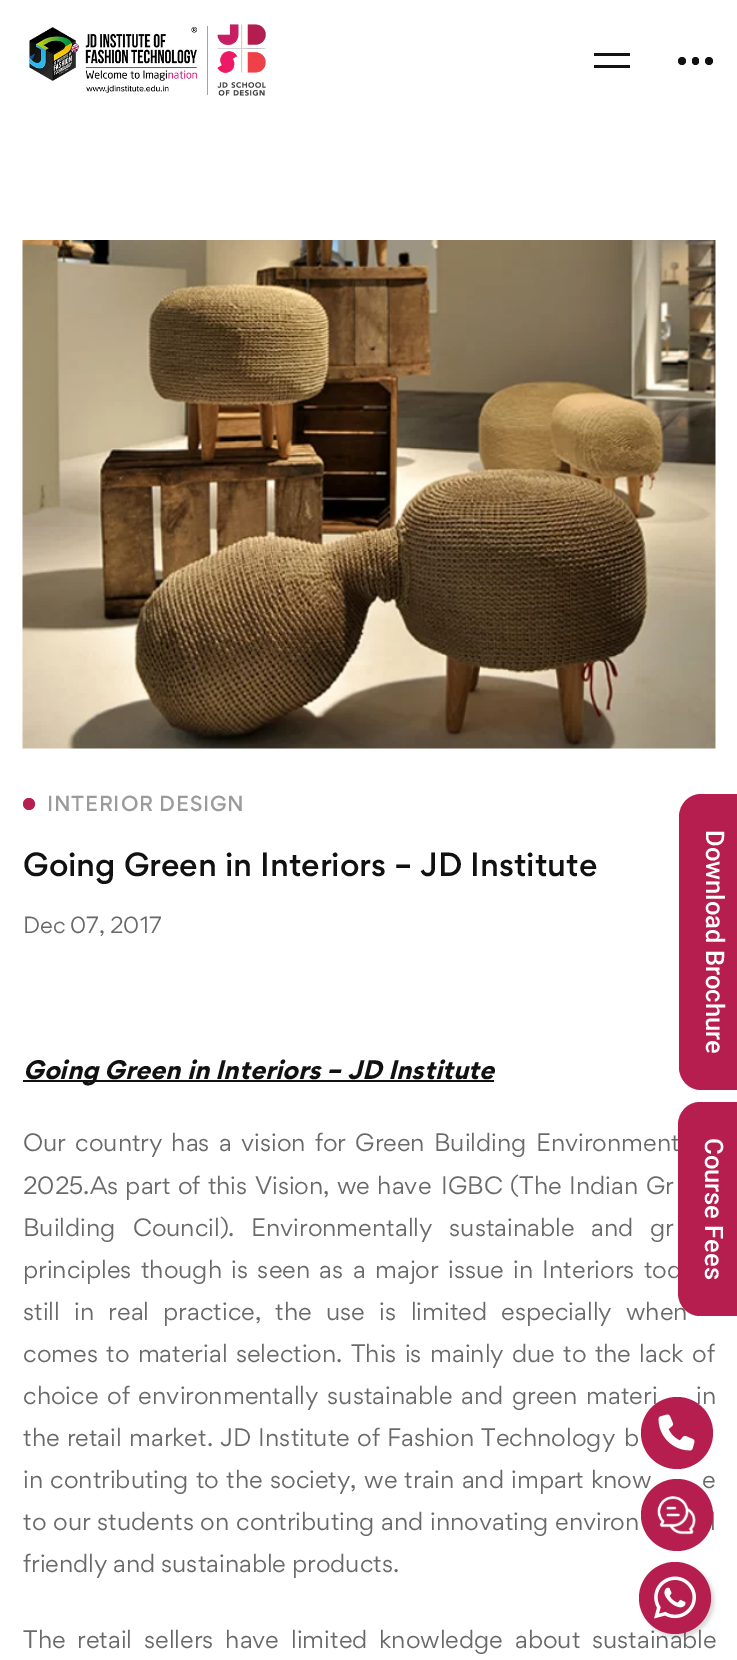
%!PS-Adobe-3.0
%%BoundingBox: 0 0 737 1660
%%LanguageLevel: 3
%%Pages: 1
%%EndComments
%%BeginProlog
/setink { dup -16 bitshift 255 div exch dup -8 bitshift 255 and 255 div exch 255 and 255 div setrgbcolor } def
/usefont { [ exch dup neg 0 0 3 -1 roll 0 0 ] selectfont } def
/setalpha { dup .setfillconstantalpha .setstrokeconstantalpha } def
/disc { newpath 0 360 arc closepath } def
/rrect { 5 dict begin { /r /h /w /y /x } { exch def } forall
  x r add y moveto x w add y 2 copy h add r arct x w add y h add x 1 index r arct
  x y h add x y r arct x y 2 copy exch w add exch r arct closepath end } def
/softshadow { 12 dict begin { /a /b /q /h /w /y /x } { exch def } forall gsave /was 0 def
  9 -2 -9 { dup b mul 4 div /e exch def 1 sub .425 mul 2.718 exch exp 1 add a .99 .min exch div /now exch def
    1 1 now sub 1 was sub div sub setalpha /was now def
    w h .min e 2 mul add 0 gt { x e sub y e sub w e 2 mul add h e 2 mul add
      q e add b .6 mul add w h .min 2 div e add .min 0 .max rrect fill } if } for grestore end } def
/drawimage { 5 dict begin { /h /w /y /x /name } { exch def } forall
  gsave x y translate w h scale
  w h 8 [w 0 0 h 0 0] name (r) file false 3 colorimage grestore end } def
%%EndProlog
%%BeginSetup
<< /PageSize [737 1660] /PageUsesTransparency true >> setpagedevice
%%EndSetup
%%Page: 1 1
0 .pushpdf14devicefilter
0 1660 translate 1 -1 scale
4 setmiterlimit
16#FFFFFF setink
0 0 737 1660 rectfill
(img1.raw) 29 24 237 72 drawimage
16#131313 setink
594 53 36 3 rectfill
594 65 36 3 rectfill
16#111111 setink
682 61 4 disc fill
692 57 7 8 3.5 rrect fill
709 61 4 disc fill
(img2.raw) 22 240 694 509 drawimage
16#B51E4F setink
29 804 6 disc fill
/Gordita-Medium 19.5 usefont
16#9B9B9B setink
47 811 moveto 0.75 0 (INTERIOR DESIGN) ashow
/Gordita-Medium 30 usefont
16#111111 setink
23 876 moveto (Going Green in Interiors – JD Institute) show
/Gordita-Regular 21 usefont
16#696969 setink
23 933 moveto -1 0 32 (Dec 07, 2017) widthshow
16#111111 setink
23 1080 471 2 rectfill
/Gordita-BoldItalic 24 usefont
23 1079 moveto (Going Green in Interiors – JD Institute) show
/Gordita-Regular 22.5 usefont
16#696969 setink
23 1151 moveto 3 0 32 (Our country has a vision for Green Building Environment) widthshow
23 1194 moveto 1 0 32 (2025.As part of this Vision, we have) widthshow
441 1194 moveto 1.5 0 32 (IGBC \(The Indian Gr) widthshow
23 1236 moveto 11 0 32 (Building Council\)) widthshow
228 1236 moveto 10.5 0 32 (. Environmentally sustainable and gr) widthshow
23 1278 moveto 3.1 0 32 (principles though is seen as a major issue in Interiors tod) widthshow
23 1320 moveto 8 0 32 (still in real practice, the use is limited especially when) widthshow
23 1362 moveto 2 0 32 (comes to material selection. This is mainly due to the lack of) widthshow
23 1404 moveto 2.5 0 32 (choice of environmentally sustainable and green materi) widthshow
696 1404 moveto 2.5 0 32 (in) widthshow
23 1446 moveto 1 0 32 (the retail market.) widthshow
220 1446 moveto 1 0 32 (JD Institute of Fashion Technology) widthshow
624 1446 moveto (b) show
23 1488 moveto 1 0 32 (in contributing to the society, we train and impart know) widthshow
702 1488 moveto 1 0 32 (e) widthshow
23 1530 moveto 0.5 0 32 (to our students on contributing and innovating environ) widthshow
710 1530 moveto 0.5 0 32 (l) widthshow
23 1572 moveto -0.5 0 32 (friendly and sustainable products.) widthshow
23 1648 moveto 5.5 0 32 (The retail sellers have limited knowledge about sustainable) widthshow
16#B51E4F setink
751 794 moveto 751 1090 lineto 701 1090 lineto 689 1090 679 1080 679 1067 curveto 679 817 lineto 679 804 689 794 701 794 curveto closepath fill
/Roboto-Medium 25.5 usefont
16#FFFFFF setink
gsave 706 830 translate 90 rotate 0 0 moveto (Download Brochure) show grestore
16#B51E4F setink
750 1102 moveto 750 1316 lineto 700 1316 lineto 688 1316 678 1306 678 1293 curveto 678 1125 lineto 678 1112 688 1102 700 1102 curveto closepath fill
16#FFFFFF setink
gsave 705 1138 translate 90 rotate 0 0 moveto (Course Fees) show grestore
16#B51E4F setink
677 1433 36 disc fill
(img3.raw) 658 1414 37 37 drawimage
677 1515 36 disc fill
(img4.raw) 657 1496 39 39 drawimage
16#000000 setink
642 1565 72 72 36 2 0.15 softshadow
16#B51E4F setink
675 1598 36 disc fill
(img5.raw) 654 1576 42 43 drawimage
.poppdf14devicefilter showpage
%%EOF
